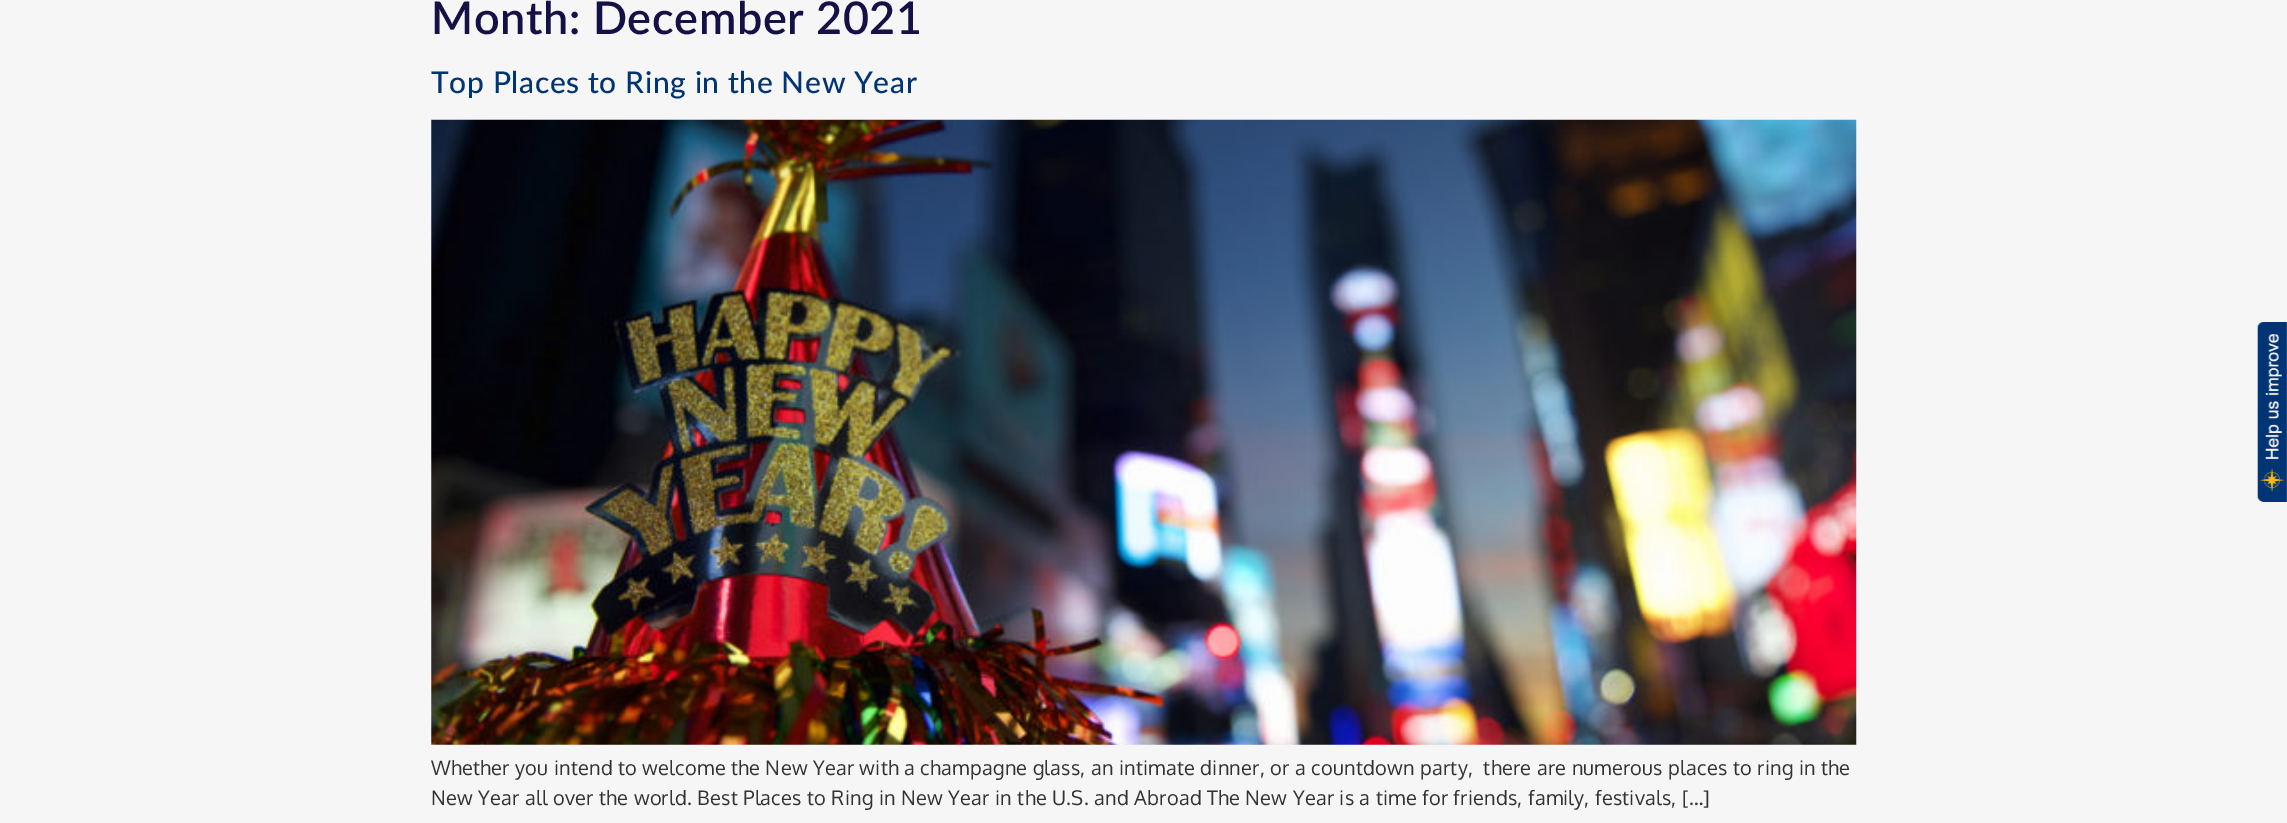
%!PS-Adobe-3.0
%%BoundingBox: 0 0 2287 823
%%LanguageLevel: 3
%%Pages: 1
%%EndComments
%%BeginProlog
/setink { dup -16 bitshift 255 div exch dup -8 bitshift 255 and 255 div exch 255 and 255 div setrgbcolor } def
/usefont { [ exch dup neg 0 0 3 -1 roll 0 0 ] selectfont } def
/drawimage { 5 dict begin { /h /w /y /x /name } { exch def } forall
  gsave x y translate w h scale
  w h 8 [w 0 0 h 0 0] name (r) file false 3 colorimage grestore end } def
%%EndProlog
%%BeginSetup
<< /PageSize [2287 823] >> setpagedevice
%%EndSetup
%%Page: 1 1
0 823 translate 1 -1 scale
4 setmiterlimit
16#F6F6F6 setink
0 0 2287 823 rectfill
/Lato-SemiBold 45 usefont
16#151147 setink
431 34 moveto 0.6 0 (Month: December 2021) ashow
/Lato-Medium 30 usefont
16#013474 setink
431 93 moveto 0.6 0 (Top Places to Ring in the New Year) ashow
(img1.raw) 431 119 1426 626 drawimage
/Oxygen-Regular 20 usefont
16#333333 setink
431 775 moveto 0.25 0 (Whether you intend to welcome the New Year with a champagne glass, an intimate dinner, or a countdown party,  there are numerous places to ring in the) ashow
431 805 moveto 0.25 0 (New Year all over the world. Best Places to Ring in New Year in the U.S. and Abroad The New Year is a time for friends, family, festivals, […]) ashow
(img2.raw) 2257 322 30 180 drawimage
showpage
%%EOF
